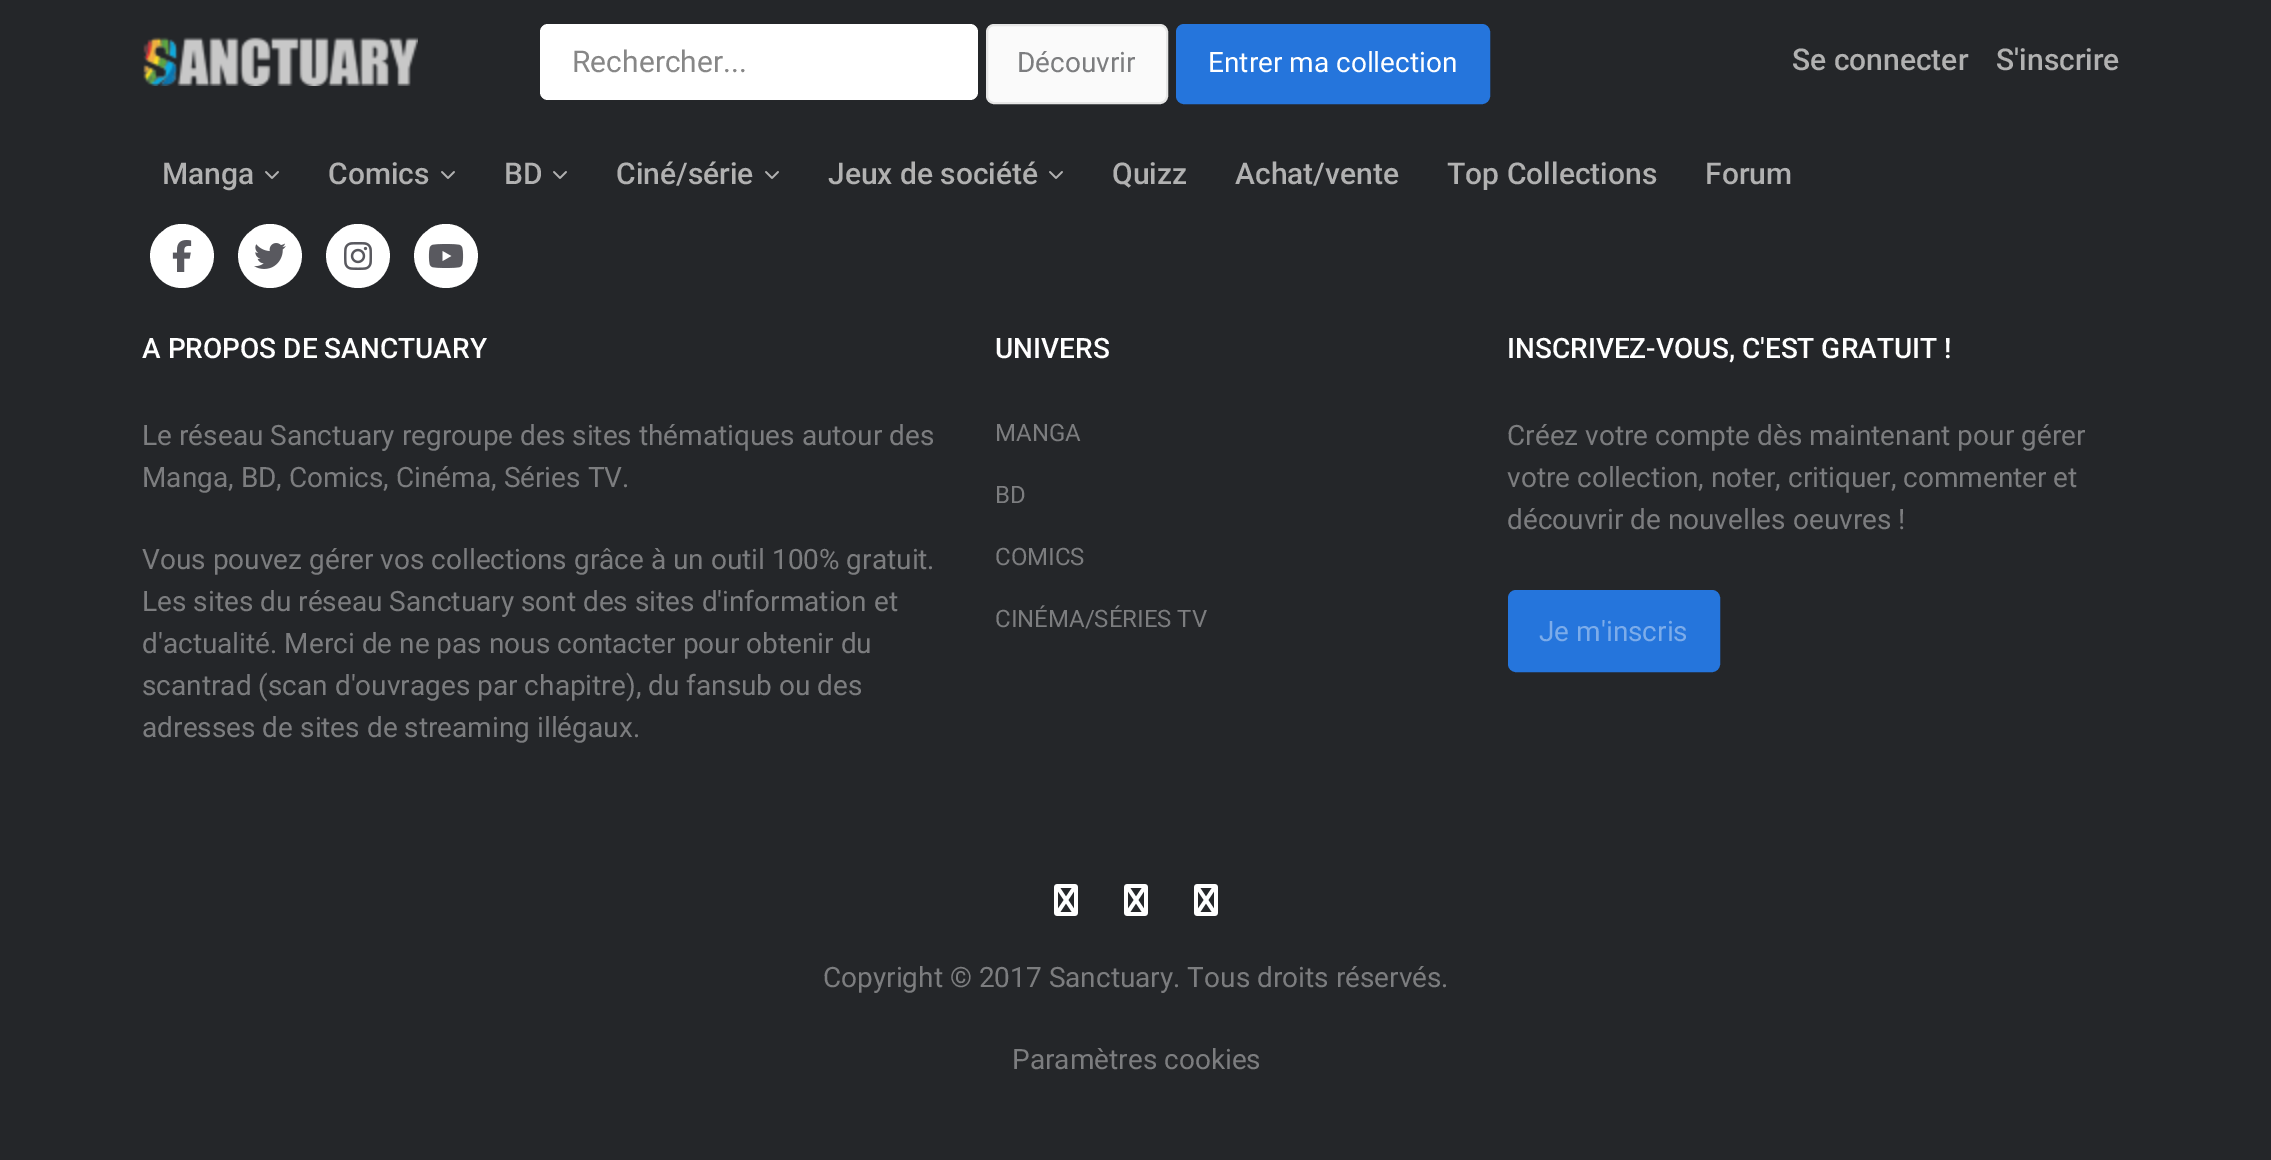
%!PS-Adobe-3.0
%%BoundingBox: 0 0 2271 1160
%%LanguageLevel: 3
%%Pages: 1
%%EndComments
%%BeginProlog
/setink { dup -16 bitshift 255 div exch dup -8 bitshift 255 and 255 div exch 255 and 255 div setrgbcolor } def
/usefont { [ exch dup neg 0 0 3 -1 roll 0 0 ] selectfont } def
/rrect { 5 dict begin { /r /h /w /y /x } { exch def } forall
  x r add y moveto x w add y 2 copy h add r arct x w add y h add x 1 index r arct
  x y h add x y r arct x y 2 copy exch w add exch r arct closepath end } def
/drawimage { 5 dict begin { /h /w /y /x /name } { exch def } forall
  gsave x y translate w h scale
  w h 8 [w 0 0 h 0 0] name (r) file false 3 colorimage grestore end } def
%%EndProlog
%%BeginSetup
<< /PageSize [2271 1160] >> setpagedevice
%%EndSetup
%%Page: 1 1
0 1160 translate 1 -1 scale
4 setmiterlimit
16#242629 setink
0 0 2271 1160 rectfill
(img1.raw) 143 37 275 49 drawimage
16#FFFFFF setink
540 24 438 76 8 rrect fill
/Roboto-Regular 30 usefont
16#878787 setink
572 72 moveto (Rechercher...) show
16#FAFAFA setink
987 25 180 78 7 rrect gsave fill grestore
16#E6E6E6 setink
2 setlinewidth
stroke
/Roboto-Regular 28 usefont
16#7C7D7F setink
1017 72 moveto (Découvrir) show
16#2575DC setink
1177 25 312 78 7 rrect gsave fill grestore
stroke
16#FFFFFF setink
1208 72 moveto (Entrer ma collection) show
/Roboto-Medium 30 usefont
16#B1B1B1 setink
[
    [(Se connecter) 1792 70]
    [(S'inscrire) 1996 70]
    [(Manga) 162 184]
] { aload pop moveto show } forall
(img2.raw) 265 171 14 8 drawimage
328 184 moveto (Comics) show
(img2.raw) 441 171 14 8 drawimage
504 184 moveto (BD) show
(img2.raw) 553 171 14 8 drawimage
616 184 moveto (Ciné/série) show
(img2.raw) 765 171 14 8 drawimage
828 184 moveto (Jeux de société) show
(img2.raw) 1049 171 14 8 drawimage
[
    [(Quizz) 1112 184]
    [(Achat/vente) 1235 184]
    [(Top Collections) 1447 184]
    [(Forum) 1705 184]
] { aload pop moveto show } forall
16#FFFFFF setink
182 288 moveto 212 288 226 249 201 231 curveto 196 226 189 224 182 224 curveto 175 224 168 226 163 231 curveto 138 249 152 288 182 288 curveto closepath fill
(img3.raw) 172 240 20 32 drawimage
270 288 moveto 300 288 314 249 289 231 curveto 284 226 277 224 270 224 curveto 263 224 256 226 251 231 curveto 226 249 240 288 270 288 curveto closepath fill
(img4.raw) 254 243 32 26 drawimage
358 288 moveto 388 288 402 249 377 231 curveto 372 226 365 224 358 224 curveto 351 224 344 226 339 231 curveto 314 249 328 288 358 288 curveto closepath fill
(img5.raw) 344 242 28 28 drawimage
446 288 moveto 476 288 490 249 465 231 curveto 460 226 453 224 446 224 curveto 439 224 432 226 427 231 curveto 402 249 416 288 446 288 curveto closepath fill
(img6.raw) 428 244 36 24 drawimage
/Roboto-Medium 28 usefont
142 358 moveto (A PROPOS DE SANCTUARY) show
/Roboto-Regular 28 usefont
16#7C7D7F setink
[
    [(Le réseau Sanctuary regroupe des sites thématiques autour des) 142 445]
    [(Manga, BD, Comics, Cinéma, Séries TV.) 142 487]
    [(Vous pouvez gérer vos collections grâce à un outil 100% gratuit.) 142 569]
    [(Les sites du réseau Sanctuary sont des sites d'information et) 142 611]
    [(d'actualité. Merci de ne pas nous contacter pour obtenir du) 142 653]
    [(scantrad \(scan d'ouvrages par chapitre\), du fansub ou des) 142 695]
    [(adresses de sites de streaming illégaux.) 142 737]
] { aload pop moveto show } forall
/Roboto-Medium 28 usefont
16#FFFFFF setink
995 358 moveto (UNIVERS) show
/Roboto-Regular 24 usefont
16#7C7D7F setink
[
    [(MANGA) 995 441]
    [(BD) 995 503]
    [(COMICS) 995 565]
    [(CINÉMA/SÉRIES TV) 995 627]
] { aload pop moveto show } forall
/Roboto-Medium 28 usefont
16#FFFFFF setink
1507 358 moveto (INSCRIVEZ-VOUS, C'EST GRATUIT !) show
/Roboto-Regular 28 usefont
16#7C7D7F setink
[
    [(Créez votre compte dès maintenant pour gérer) 1507 445]
    [(votre collection, noter, critiquer, commenter et) 1507 487]
    [(découvrir de nouvelles oeuvres !) 1507 529]
] { aload pop moveto show } forall
16#2575DC setink
1509 591 210 80 7 rrect gsave fill grestore
stroke
16#7CACEA setink
1539 641 moveto (Je m'inscris) show
(img7.raw) 1054 884 24 32 drawimage
(img7.raw) 1124 884 24 32 drawimage
(img7.raw) 1194 884 24 32 drawimage
16#7C7D7F setink
823 987 moveto (Copyright © 2017 Sanctuary. Tous droits réservés.) show
1012 1069 moveto (Paramètres cookies) show
showpage
%%EOF
